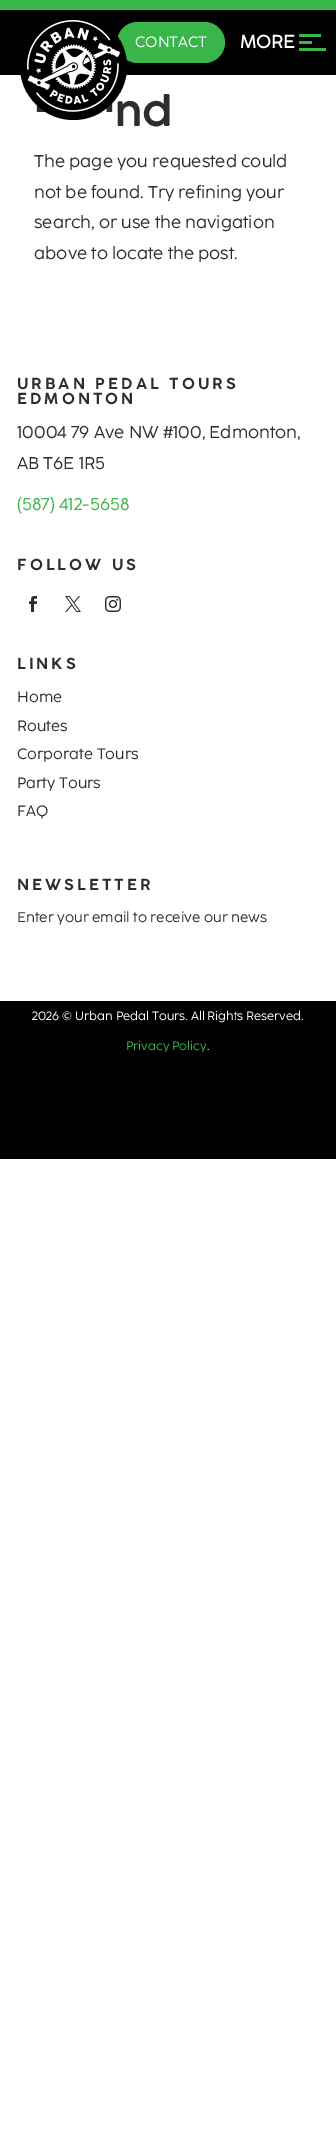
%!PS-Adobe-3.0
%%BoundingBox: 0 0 336 2132
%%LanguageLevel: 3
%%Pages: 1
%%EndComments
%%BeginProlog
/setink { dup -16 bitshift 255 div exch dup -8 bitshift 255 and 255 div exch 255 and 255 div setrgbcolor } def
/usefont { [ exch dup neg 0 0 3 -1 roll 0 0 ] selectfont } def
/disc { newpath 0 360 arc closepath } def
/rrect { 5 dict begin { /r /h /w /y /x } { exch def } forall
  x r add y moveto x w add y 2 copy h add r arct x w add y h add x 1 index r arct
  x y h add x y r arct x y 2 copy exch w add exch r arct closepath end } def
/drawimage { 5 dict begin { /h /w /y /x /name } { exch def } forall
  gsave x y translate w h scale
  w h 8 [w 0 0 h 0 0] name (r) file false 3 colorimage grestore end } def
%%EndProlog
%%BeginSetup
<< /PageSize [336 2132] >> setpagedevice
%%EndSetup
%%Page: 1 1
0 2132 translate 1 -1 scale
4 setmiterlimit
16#FFFFFF setink
0 0 336 2132 rectfill
16#39B54A setink
0 0 336 10 rectfill
16#000000 setink
0 10 336 65 rectfill
16#39B54A setink
117 22 108 41 20.5 rrect fill
/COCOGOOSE-SemiBold 39 usefont
16#2D2D2D setink
115 126 moveto (nd) show
16#000000 setink
73.5 66.5 53.5 disc fill
(img1.raw) 27 20 93 92 drawimage
/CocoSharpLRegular-Regular 15 usefont
16#FFFFFF setink
135 47 moveto (CONTACT) show
/CocoSharpLRegular-Bold 18 usefont
240 48 moveto (MORE) show
[
    [299 34 22 3 16#39B54A]
    [299 41 13 3 16#39B54A]
    [299 48 27 3 16#39B54A]
] { aload pop setink rectfill } forall
/CocoSharpLRegular-Regular 17 usefont
16#2D2D2D setink
[
    [(The page you requested could) 34 167]
    [(not be found. Try refining your) 34 198]
    [(search, or use the navigation) 34 228]
    [(above to locate the post.) 34 259]
] { aload pop moveto show } forall
/COCOGOOSE-SemiBold 15 usefont
17 389 moveto 3 0 (URBAN PEDAL TOURS) ashow
17 404 moveto 3 0 (EDMONTON) ashow
/CocoSharpLRegular-Regular 17 usefont
17 438 moveto (10004 79 Ave NW #100, Edmonton,) show
17 469 moveto (AB T6E 1R5) show
16#39B54A setink
17 510 moveto (\(587\) 412-5658) show
/COCOGOOSE-SemiBold 15 usefont
16#2D2D2D setink
17 570 moveto 3 0 (FOLLOW US) ashow
(img2.raw) 29 596 8 16 drawimage
(img3.raw) 65 596 16 16 drawimage
(img4.raw) 105 596 16 16 drawimage
17 669 moveto 3 0 (LINKS) ashow
/CocoSharpLRegular-Regular 15 usefont
[
    [(Home) 17 702]
    [(Routes) 17 731]
    [(Corporate Tours) 17 759]
    [(Party Tours) 17 788]
    [(FAQ) 17 816]
] { aload pop moveto show } forall
/COCOGOOSE-SemiBold 15 usefont
17 890 moveto 3 0 (NEWSLETTER) ashow
/CocoSharpLRegular-Regular 14 usefont
17 922 moveto (Enter your email to receive our news) show
16#000000 setink
0 1001 336 158 rectfill
/CocoSharpLRegular-Regular 12 usefont
16#FFFFFF setink
32 1020 moveto (2026 © Urban Pedal Tours. All Rights Reserved.) show
16#39B54A setink
126 1050 moveto (Privacy Policy) show
16#FFFFFF setink
207 1050 moveto (.) show
showpage
%%EOF
